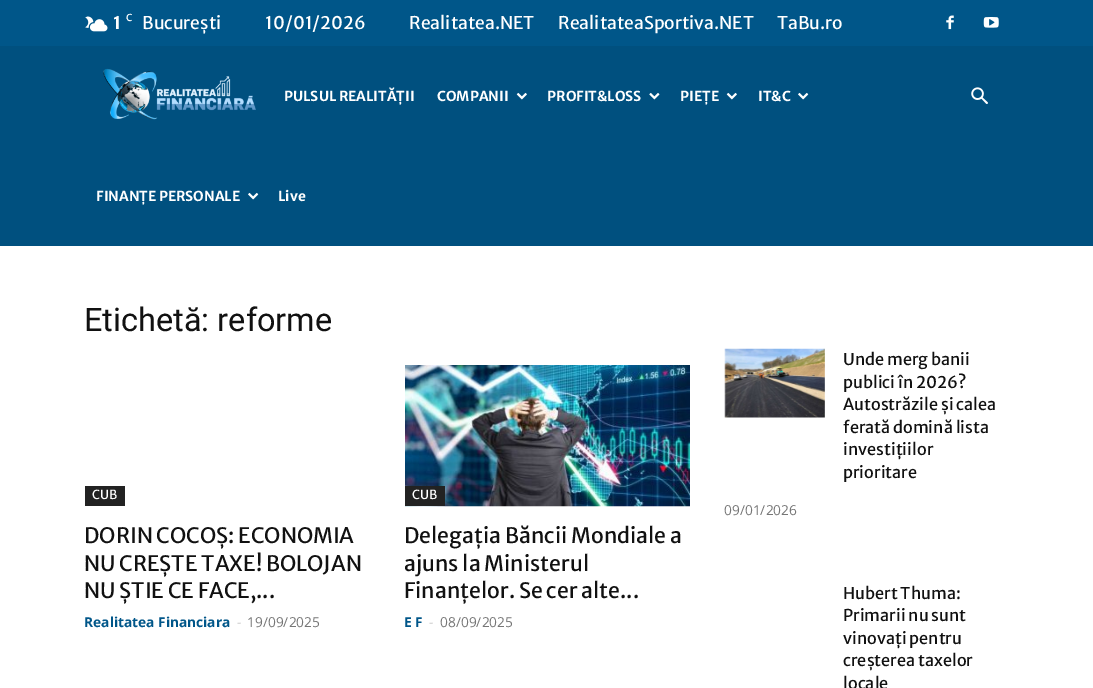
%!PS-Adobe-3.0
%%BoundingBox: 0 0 1093 688
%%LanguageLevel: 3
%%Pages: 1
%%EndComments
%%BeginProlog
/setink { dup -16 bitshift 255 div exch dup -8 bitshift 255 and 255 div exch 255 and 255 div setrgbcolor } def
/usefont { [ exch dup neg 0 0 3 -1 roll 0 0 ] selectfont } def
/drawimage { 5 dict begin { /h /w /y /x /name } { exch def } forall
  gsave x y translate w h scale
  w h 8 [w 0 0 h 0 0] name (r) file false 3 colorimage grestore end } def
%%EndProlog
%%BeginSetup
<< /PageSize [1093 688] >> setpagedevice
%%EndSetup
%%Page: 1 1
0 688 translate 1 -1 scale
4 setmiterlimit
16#FFFFFF setink
0 0 1093 688 rectfill
16#005689 setink
0 0 1093 46 rectfill
(img1.raw) 85 16 23 16 drawimage
/MerriweatherSans-Bold 17.5 usefont
16#FFFFFF setink
113 29 moveto (1) show
/OpenSans-SemiBold 10 usefont
126 21 moveto (C) show
/MerriweatherSans-Regular 17.5 usefont
[
    [(București) 142 29]
    [(10/01/2026) 265 29]
    [(Realitatea.NET) 409 29]
    [(RealitateaSportiva.NET) 558 29]
    [(TaBu.ro) 777 29]
] { aload pop moveto show } forall
(img2.raw) 946 15 8 15 drawimage
(img3.raw) 983 17 16 11 drawimage
16#00507F setink
0 46 1093 200 rectfill
(img4.raw) 103 68 153 52 drawimage
/MerriweatherSans-Bold 13.75 usefont
16#FFFFFF setink
284 101 moveto (PULSUL REALITĂȚII) show
437 101 moveto (COMPANII) show
(img5.raw) 516 92 11 8 drawimage
547 101 moveto (PROFIT&LOSS) show
(img6.raw) 649 92 11 8 drawimage
680 101 moveto (PIEȚE) show
(img5.raw) 726 92 11 8 drawimage
758 101 moveto (IT&C) show
(img7.raw) 798 92 11 8 drawimage
96 201 moveto (FINANȚE PERSONALE) show
(img7.raw) 248 192 11 8 drawimage
278 201 moveto (Live) show
(img8.raw) 971 87 17 17 drawimage
/Roboto-Regular 32.5 usefont
16#111111 setink
84 331 moveto (Etichetă: reforme) show
16#222222 setink
85 486 40 20 rectfill
/MerriweatherSans-Regular 12.5 usefont
16#FFFFFF setink
92 499 moveto (CUB) show
/MerriweatherSans-Regular 21.25 usefont
16#111111 setink
[
    [(DORIN COCOȘ: ECONOMIA) 84 543]
    [(NU CREȘTE TAXE! BOLOJAN) 84 571]
    [(NU ȘTIE CE FACE,...) 84 598]
] { aload pop moveto show } forall
/OpenSans-Bold 13.75 usefont
16#005689 setink
84 627 moveto (Realitatea Financiara) show
/OpenSans-Regular 13.75 usefont
16#CCCCCC setink
237 627 moveto (-) show
16#767676 setink
247 627 moveto (19/09/2025) show
(img9.raw) 405 365 285 142 drawimage
16#222222 setink
405 486 40 20 rectfill
/MerriweatherSans-Regular 12.5 usefont
16#FFFFFF setink
412 499 moveto (CUB) show
/MerriweatherSans-Regular 21.25 usefont
16#111111 setink
[
    [(Delegația Băncii Mondiale a) 404 543]
    [(ajuns la Ministerul) 404 571]
    [(Finanțelor. Se cer alte...) 404 598]
] { aload pop moveto show } forall
/OpenSans-Bold 13.75 usefont
16#005689 setink
404 627 moveto (E F) show
/OpenSans-Regular 13.75 usefont
16#CCCCCC setink
429 627 moveto (-) show
16#767676 setink
440 627 moveto (08/09/2025) show
(img10.raw) 724 348 101 70 drawimage
/MerriweatherSans-Regular 16.25 usefont
16#111111 setink
[
    [(Unde merg banii) 843 365]
    [(publici în 2026?) 843 388]
    [(Autostrăzile și calea) 843 410]
    [(ferată domină lista) 843 433]
    [(investițiilor) 843 455]
    [(prioritare) 843 478]
] { aload pop moveto show } forall
/OpenSans-Regular 13.75 usefont
16#767676 setink
724 515 moveto (09/01/2026) show
/MerriweatherSans-Regular 16.25 usefont
16#111111 setink
[
    [(Hubert Thuma:) 843 599]
    [(Primarii nu sunt) 843 621]
    [(vinovați pentru) 843 644]
    [(creșterea taxelor) 843 666]
    [(locale) 843 689]
] { aload pop moveto show } forall
showpage
%%EOF
